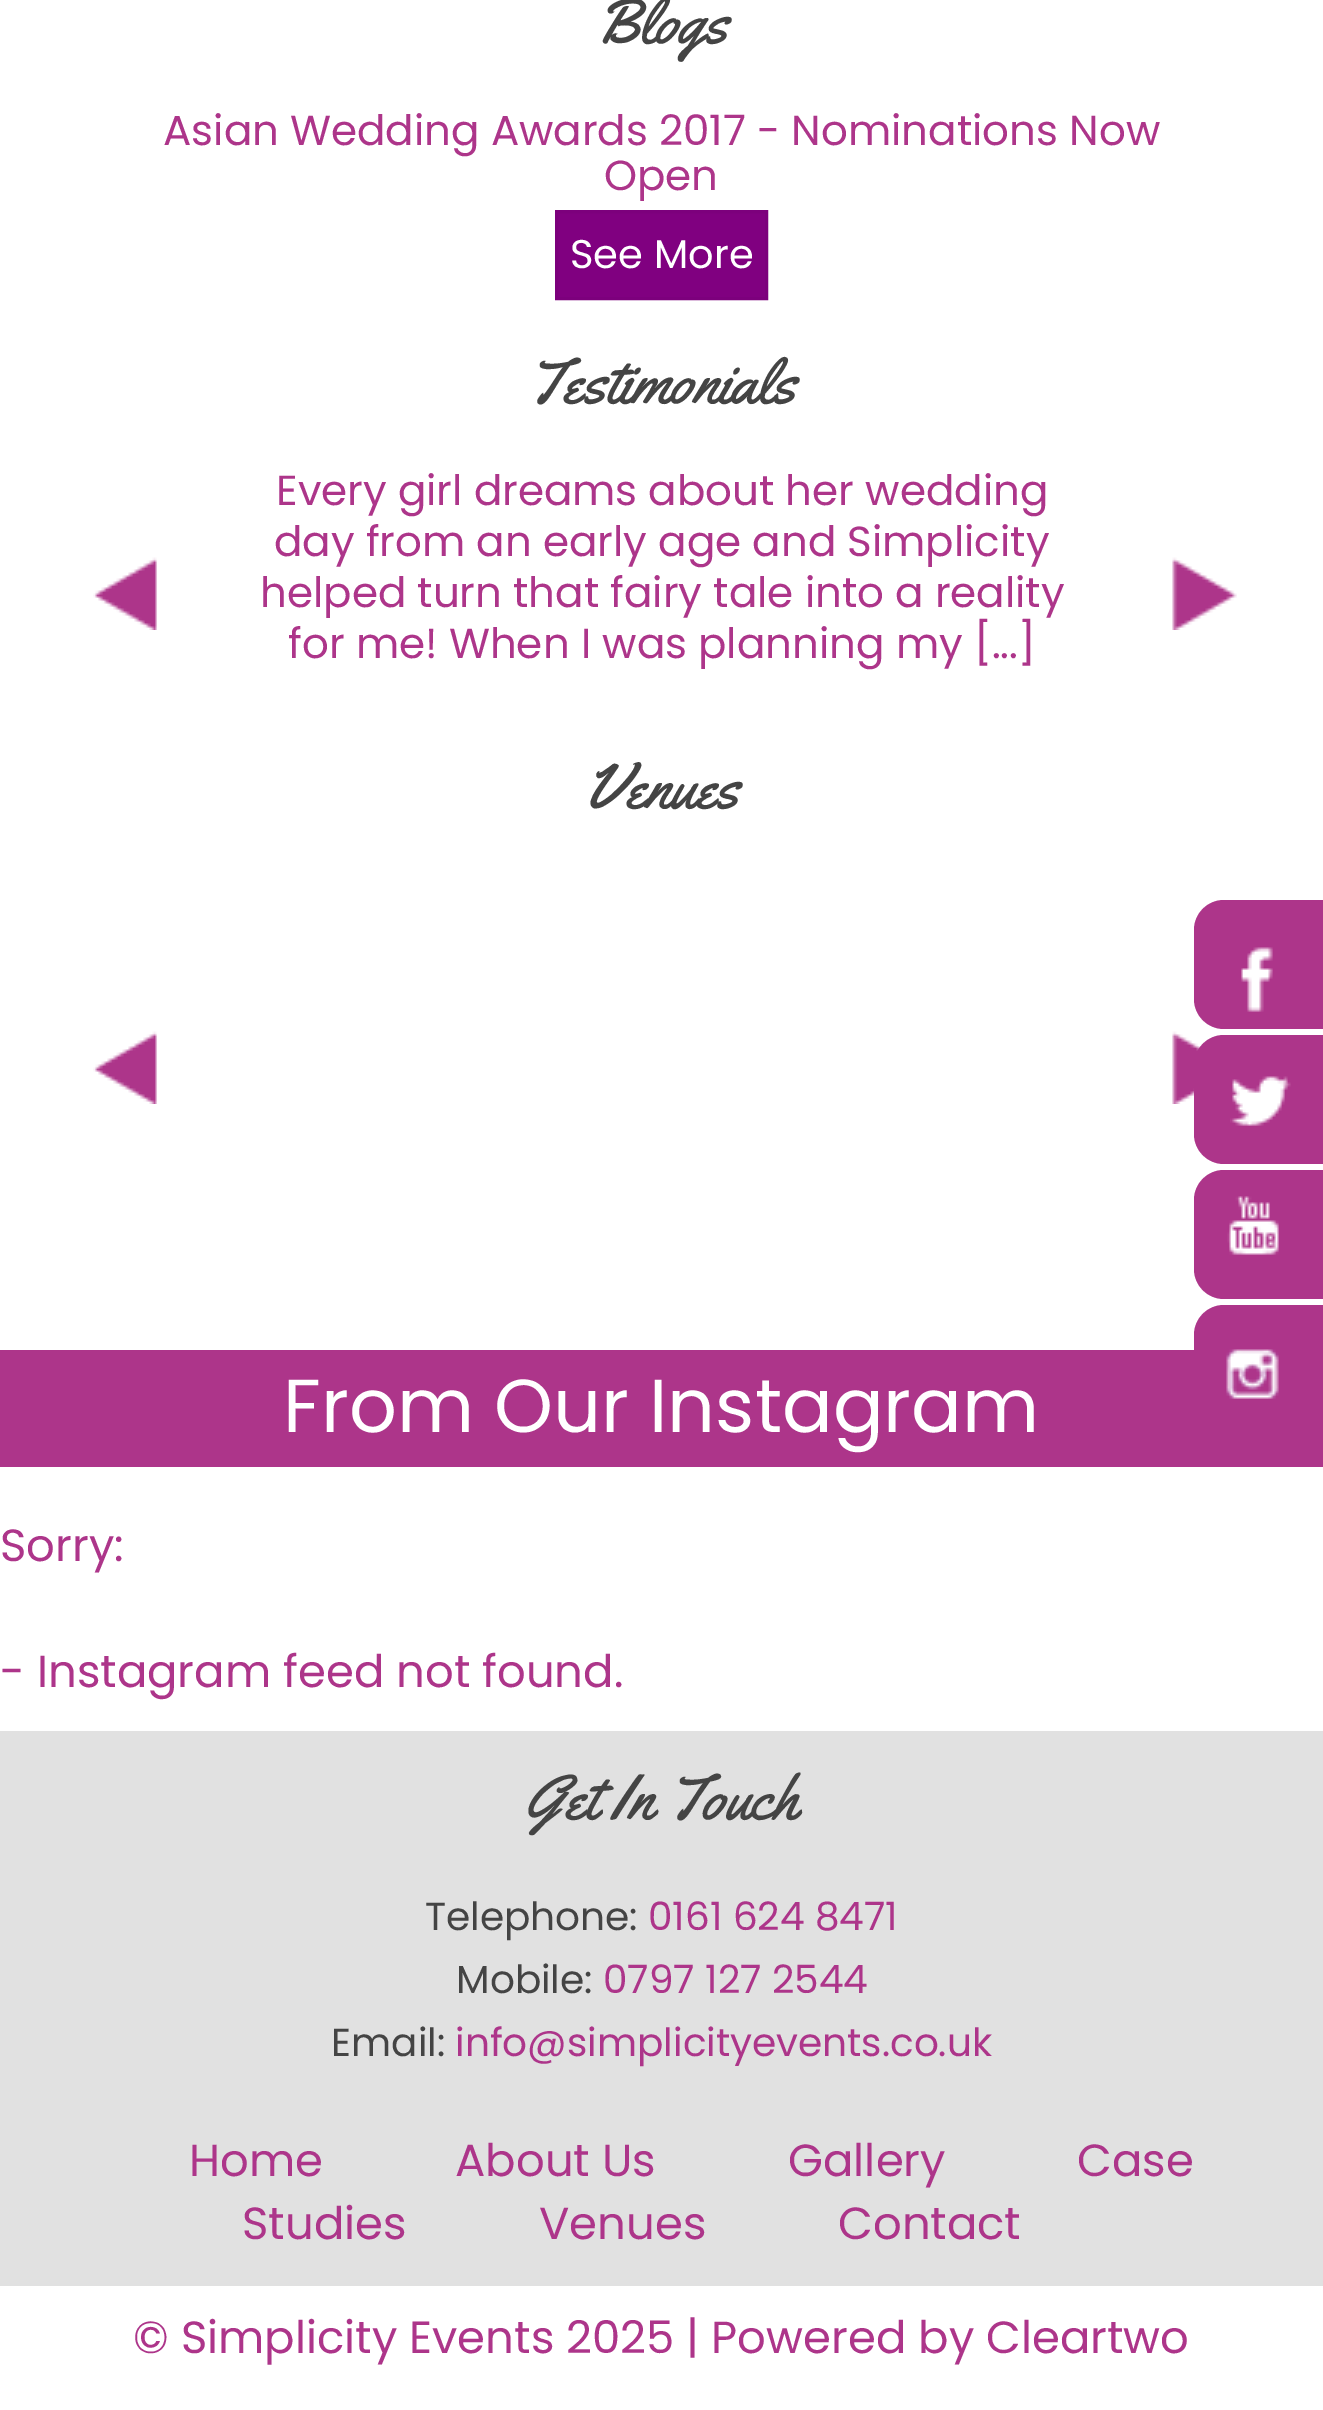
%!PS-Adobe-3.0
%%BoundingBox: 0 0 1323 2410
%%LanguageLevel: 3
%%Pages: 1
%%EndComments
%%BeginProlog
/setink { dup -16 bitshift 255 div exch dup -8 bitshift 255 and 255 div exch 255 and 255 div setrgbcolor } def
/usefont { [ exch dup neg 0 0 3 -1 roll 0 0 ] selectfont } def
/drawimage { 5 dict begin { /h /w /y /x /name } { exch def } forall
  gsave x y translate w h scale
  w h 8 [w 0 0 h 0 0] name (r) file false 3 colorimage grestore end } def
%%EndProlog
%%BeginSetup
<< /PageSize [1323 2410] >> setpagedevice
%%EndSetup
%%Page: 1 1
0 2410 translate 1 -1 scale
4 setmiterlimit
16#FFFFFF setink
0 0 1323 2410 rectfill
/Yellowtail-Regular 63 usefont
16#444444 setink
596 43 moveto (Blogs) show
/Poppins-Regular 42 usefont
16#AD358A setink
163 145 moveto (Asian Wedding Awards 2017 - Nominations Now) show
604 190 moveto (Open) show
16#800080 setink
556.5 211.5 moveto 766.5 211.5 lineto 766.5 298.5 lineto 556.5 298.5 lineto closepath gsave fill grestore
16#7C007C setink
3 setlinewidth
stroke
/Poppins-Regular 40 usefont
16#FFFFFF setink
570 268 moveto (See More) show
/Yellowtail-Regular 63 usefont
16#444444 setink
527 403 moveto (Testimonials) show
(img1.raw) 93 557 64 73 drawimage
/Poppins-Regular 42 usefont
16#AD358A setink
[
    [(Every girl dreams about her wedding) 276 505]
    [(day from an early age and Simplicity) 274 556]
    [(helped turn that fairy tale into a reality) 260 607]
    [(for me! When I was planning my [...]) 288 658]
] { aload pop moveto show } forall
(img2.raw) 1172 557 65 73 drawimage
/Yellowtail-Regular 63 usefont
16#444444 setink
584 808 moveto (Venues) show
(img1.raw) 93 1031 64 73 drawimage
(img3.raw) 1172 1031 29 73 drawimage
16#AD358A setink
0 1350 1323 117 rectfill
/Poppins-Regular 75 usefont
16#FFFFFF setink
283 1432 moveto (From Our Instagram) show
/Poppins-Regular 45 usefont
16#AD358A setink
0 1561 moveto (Sorry:) show
0 1687 moveto (- Instagram feed not found.) show
16#E1E1E1 setink
0 1731 1323 555 rectfill
/Yellowtail-Regular 63 usefont
16#444444 setink
525 1819 moveto (Get In Touch) show
/Poppins-Regular 39 usefont
425 1930 moveto (Telephone:) show
16#AD358A setink
648 1930 moveto (0161 624 8471) show
16#444444 setink
456 1993 moveto (Mobile:) show
16#AD358A setink
603 1993 moveto (0797 127 2544) show
16#444444 setink
331 2056 moveto (Email:) show
16#AD358A setink
455 2056 moveto (info@simplicityevents.co.uk) show
/Poppins-Regular 45 usefont
[
    [(Home) 189 2176]
    [(About Us) 455 2176]
    [(Gallery) 788 2176]
    [(Case) 1077 2176]
    [(Studies) 242 2239]
    [(Venues) 539 2239]
    [(Contact) 838 2239]
    [(© Simplicity Events 2025 | Powered by Cleartwo) 133 2353]
] { aload pop moveto show } forall
1224 900 moveto 1323 900 lineto 1323 1029 lineto 1224 1029 lineto 1207.5 1029 1194 1015.5 1194 999 curveto 1194 930 lineto 1194 913.5 1207.5 900 1224 900 curveto closepath fill
(img4.raw) 1241 947 32 65 drawimage
1224 1035 moveto 1323 1035 lineto 1323 1164 lineto 1224 1164 lineto 1207.5 1164 1194 1150.5 1194 1134 curveto 1194 1065 lineto 1194 1048.5 1207.5 1035 1224 1035 curveto closepath fill
(img5.raw) 1230 1076 61 50 drawimage
1224 1170 moveto 1323 1170 lineto 1323 1299 lineto 1224 1299 lineto 1207.5 1299 1194 1285.5 1194 1269 curveto 1194 1200 lineto 1194 1183.5 1207.5 1170 1224 1170 curveto closepath fill
(img6.raw) 1227 1196 52 59 drawimage
1224 1305 moveto 1323 1305 lineto 1323 1434 lineto 1224 1434 lineto 1207.5 1434 1194 1420.5 1194 1404 curveto 1194 1335 lineto 1194 1318.5 1207.5 1305 1224 1305 curveto closepath fill
(img7.raw) 1226 1349 53 50 drawimage
showpage
%%EOF
